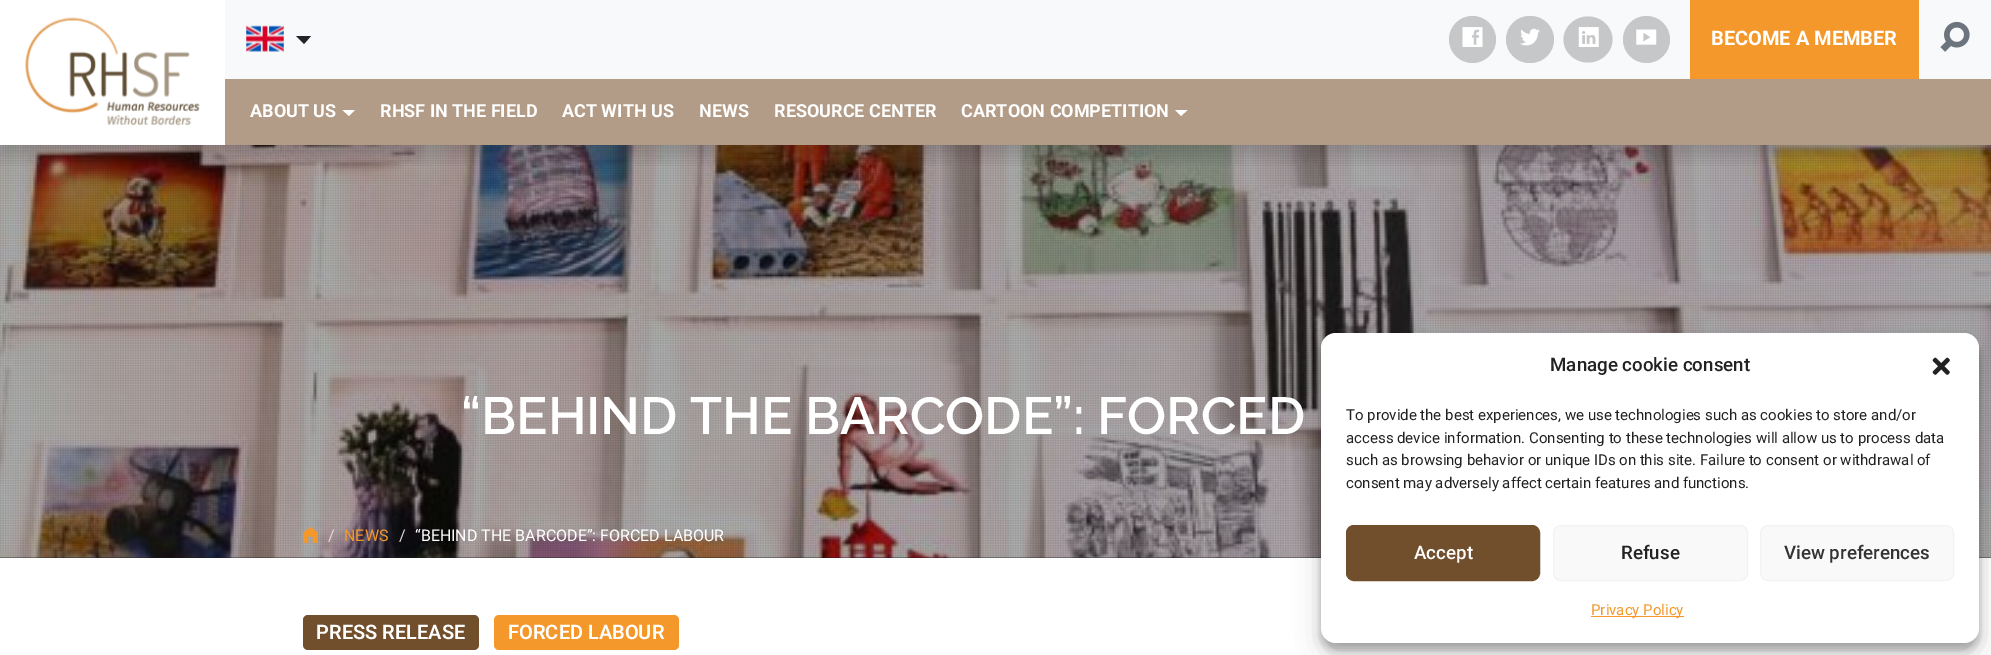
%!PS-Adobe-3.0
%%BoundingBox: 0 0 1991 655
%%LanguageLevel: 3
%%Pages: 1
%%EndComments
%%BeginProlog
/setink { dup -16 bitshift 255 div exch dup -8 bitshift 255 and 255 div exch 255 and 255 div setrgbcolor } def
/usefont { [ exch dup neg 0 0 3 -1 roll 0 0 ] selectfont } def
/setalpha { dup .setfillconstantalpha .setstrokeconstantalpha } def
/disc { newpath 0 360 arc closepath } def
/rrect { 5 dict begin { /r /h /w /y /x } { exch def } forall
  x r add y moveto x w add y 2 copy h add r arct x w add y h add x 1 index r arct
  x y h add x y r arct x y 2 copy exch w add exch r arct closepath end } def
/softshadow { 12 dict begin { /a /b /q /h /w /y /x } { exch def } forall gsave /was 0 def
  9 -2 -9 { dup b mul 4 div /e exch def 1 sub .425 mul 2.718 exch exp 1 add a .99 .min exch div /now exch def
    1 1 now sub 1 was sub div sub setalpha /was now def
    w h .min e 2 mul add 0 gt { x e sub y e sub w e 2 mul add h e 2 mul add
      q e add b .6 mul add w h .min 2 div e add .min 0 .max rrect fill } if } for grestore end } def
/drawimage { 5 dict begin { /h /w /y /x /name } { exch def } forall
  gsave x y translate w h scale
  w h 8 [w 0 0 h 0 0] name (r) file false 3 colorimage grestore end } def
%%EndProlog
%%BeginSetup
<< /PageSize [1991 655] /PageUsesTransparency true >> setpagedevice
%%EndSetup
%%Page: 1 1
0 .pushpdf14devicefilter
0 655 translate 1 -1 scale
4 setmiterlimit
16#FFFFFF setink
0 0 1991 655 rectfill
16#121212 setink
0 557 1991 1 rectfill
(img8.raw) 0 145 1991 413 drawimage
(img9.raw) 0 145 1991 413 drawimage
gsave
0 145 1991 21 rectclip
16#000000 setink
0 10 1991 145 0 10 0.15 softshadow
grestore
(img1.raw) 25 17 175 109 drawimage
16#F8F9FA setink
225 0 1766 79 rectfill
(img2.raw) 246 25 38 27 drawimage
16#212529 setink
296 36 moveto 311 36 lineto 304 44 lineto closepath fill
16#C6C7C8 setink
1472.5 39.5 23.5 disc fill
(img3.raw) 1462 27 21 20 drawimage
1506 16 48 47 23.5 rrect fill
(img4.raw) 1520 28 20 18 drawimage
1588 16.5 moveto 1601.5 16.5 1612.5 27 1612.5 39.5 curveto 1612.5 52 1601.5 62.5 1588 62.5 curveto 1574.5 62.5 1563.5 52 1563.5 39.5 curveto 1563.5 27 1574.5 16.5 1588 16.5 curveto closepath fill
(img5.raw) 1578 27 21 20 drawimage
1646.5 39.5 23.5 disc fill
(img6.raw) 1636 29 21 16 drawimage
16#F4982B setink
1690 0 229 79 rectfill
/Roboto-Bold 20 usefont
16#FFFFFF setink
1711 45 moveto (BECOME A MEMBER) show
(img7.raw) 1940 21 30 31 drawimage
16#B29C87 setink
225 79 1766 66 rectfill
/Roboto-Bold 18 usefont
16#FFFFFF setink
250 117 moveto (ABOUT US) show
342.5 110 moveto 355 110 lineto 349 116 lineto closepath fill
[
    [(RHSF IN THE FIELD) 380 117]
    [(ACT WITH US) 562 117]
    [(NEWS) 699 117]
    [(RESOURCE CENTER) 774 117]
    [(CARTOON COMPETITION) 961 117]
] { aload pop moveto show } forall
1175 110 moveto 1187.5 110 lineto 1181 116 lineto closepath fill
/Raleway-SemiBold 52 usefont
461 434 moveto (“BEHIND THE BARCODE”: FORCED) show
(img10.raw) 303 527 15 16 drawimage
/Roboto-Regular 16 usefont
16#DEDEDE setink
328 541 moveto (/) show
16#F4982B setink
344 541 moveto (NEWS) show
16#DEDEDE setink
399 541 moveto (/) show
16#FFFFFF setink
415 541 moveto (“BEHIND THE BARCODE”: FORCED LABOUR) show
16#714E2C setink
303 615 176 35 5 rrect fill
/Roboto-SemiBold 20 usefont
16#FFFFFF setink
316 639 moveto (PRESS RELEASE) show
16#F4982B setink
494 615 185 35 5 rrect fill
16#FFFFFF setink
508 639 moveto (FORCED LABOUR) show
16#000000 setink
1321 340 658 310 15 4 0.23 softshadow
1321 345 658 310 15 12.5 0.19 softshadow
16#FFFFFF setink
1321 333 658 310 15 rrect fill
/Roboto-Medium 18.75 usefont
16#222222 setink
1550 371 moveto (Manage cookie consent) show
(img11.raw) 1932 357 18 18 drawimage
/Roboto-Regular 15 usefont
[
    [(To provide the best experiences, we use technologies such as cookies to store and/or) 1346 420]
    [(access device information. Consenting to these technologies will allow us to process data) 1346 443]
    [(such as browsing behavior or unique IDs on this site. Failure to consent or withdrawal of) 1346 465]
    [(consent may adversely affect certain features and functions.) 1346 488]
] { aload pop moveto show } forall
16#714E2C setink
1346.5 525.5 193 55 7.5 rrect gsave fill grestore
stroke
/Roboto-Medium 18.75 usefont
16#FFFFFF setink
1414 559 moveto (Accept) show
16#F9F9F9 setink
1553.5 525.5 194 55 7.5 rrect gsave fill grestore
16#F2F2F2 setink
stroke
16#222222 setink
1621 559 moveto (Refuse) show
16#F9F9F9 setink
1760.5 525.5 193 55 7.5 rrect gsave fill grestore
16#F2F2F2 setink
stroke
16#333333 setink
1784 559 moveto (View preferences) show
16#F4982B setink
1591 616 93 1 rectfill
/Roboto-Regular 15 usefont
1591 615 moveto (Privacy Policy) show
.poppdf14devicefilter showpage
%%EOF
